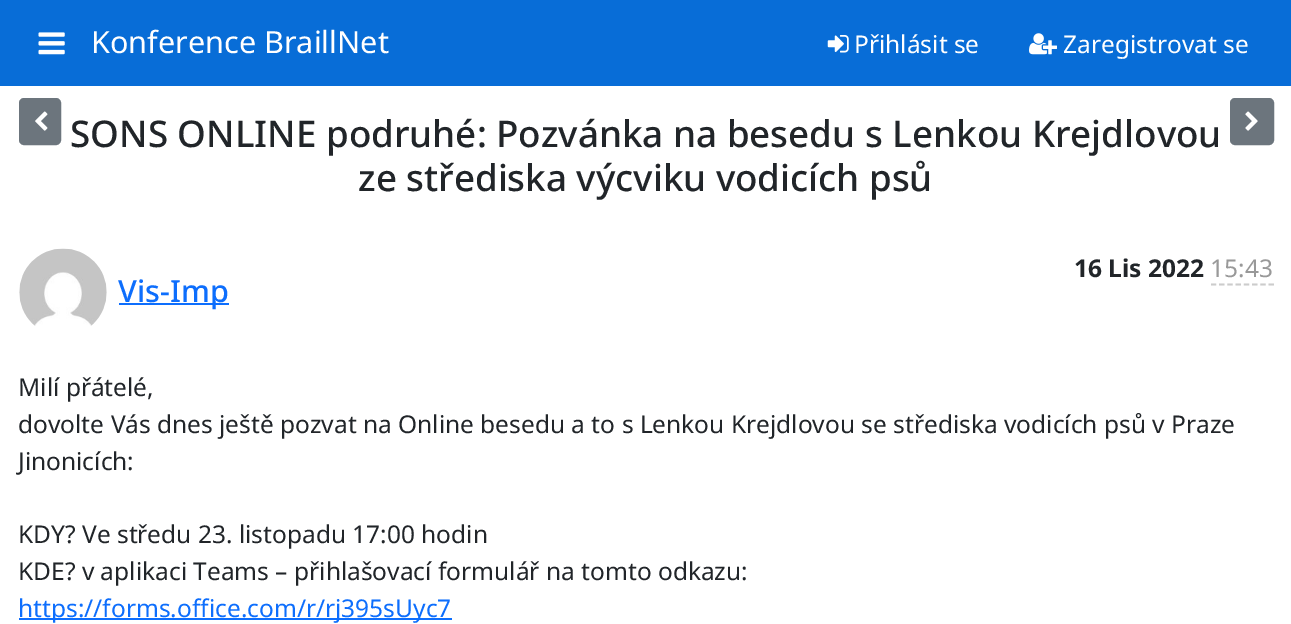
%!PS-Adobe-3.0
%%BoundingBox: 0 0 1291 624
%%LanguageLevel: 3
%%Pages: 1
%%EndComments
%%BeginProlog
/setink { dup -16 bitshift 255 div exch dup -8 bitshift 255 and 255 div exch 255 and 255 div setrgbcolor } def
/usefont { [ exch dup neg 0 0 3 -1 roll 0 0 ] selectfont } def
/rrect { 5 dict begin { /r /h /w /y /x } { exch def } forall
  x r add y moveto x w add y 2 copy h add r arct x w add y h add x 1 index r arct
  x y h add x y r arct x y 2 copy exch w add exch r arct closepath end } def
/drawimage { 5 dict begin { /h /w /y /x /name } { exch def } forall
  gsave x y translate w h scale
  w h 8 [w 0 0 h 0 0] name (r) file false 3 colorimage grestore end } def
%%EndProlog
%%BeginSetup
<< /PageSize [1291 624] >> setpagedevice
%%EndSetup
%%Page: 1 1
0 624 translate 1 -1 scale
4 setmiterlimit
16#FFFFFF setink
0 0 1291 624 rectfill
16#086DD7 setink
0 0 1291 86 rectfill
(img1.raw) 38 32 27 23 drawimage
/NotoSans-Regular 30.6 usefont
16#FFFFFF setink
91 53 moveto (Konference BraillNet) show
(img2.raw) 827 35 22 18 drawimage
/NotoSans-Regular 24.5 usefont
854 53 moveto (Přihlásit se) show
(img3.raw) 1029 33 28 22 drawimage
1063 53 moveto (Zaregistrovat se) show
16#6C757D setink
20 99 40 45 4 rrect gsave fill grestore
2 setlinewidth
stroke
(img4.raw) 35 111 13 20 drawimage
/NotoSans-Medium 36.75 usefont
16#212529 setink
70 147 moveto (SONS ONLINE podruhé: Pozvánka na besedu s Lenkou Krejdlovou) show
358 191 moveto (ze střediska výcviku vodicích psů) show
16#6C757D setink
1231 99 42 45 4 rrect gsave fill grestore
stroke
(img5.raw) 1245 111 13 20 drawimage
/NotoSans-Bold 24.5 usefont
16#212529 setink
1074 277 moveto (16 Lis 2022) show
/NotoSans-Regular 24.5 usefont
16#999999 setink
1210 277 moveto (15:43) show
16#CCCCCC setink
1.8 setlinewidth
[5.25 2.99] 0 setdash
1211 284.5 moveto 1274 284.5 lineto stroke
(img6.raw) 19 248 88 78 drawimage
16#0D6EFD setink
119 303 110 2 rectfill
/NotoSans-Medium 30.6 usefont
118 302 moveto (Vis-Imp) show
/NotoSans-Regular 24.5 usefont
16#212529 setink
[
    [(Milí přátelé,) 18 396]
    [(dovolte Vás dnes ještě pozvat na Online besedu a to s Lenkou Krejdlovou se střediska vodicích psů v Praze) 18 433]
    [(Jinonicích:) 18 470]
    [(KDY? Ve středu 23. listopadu 17:00 hodin) 18 543]
    [(KDE? v aplikaci Teams – přihlašovací formulář na tomto odkazu:) 18 580]
] { aload pop moveto show } forall
16#0D6EFD setink
19 618 433 2 rectfill
18 617 moveto (https://forms.office.com/r/rj395sUyc7) show
showpage
%%EOF
